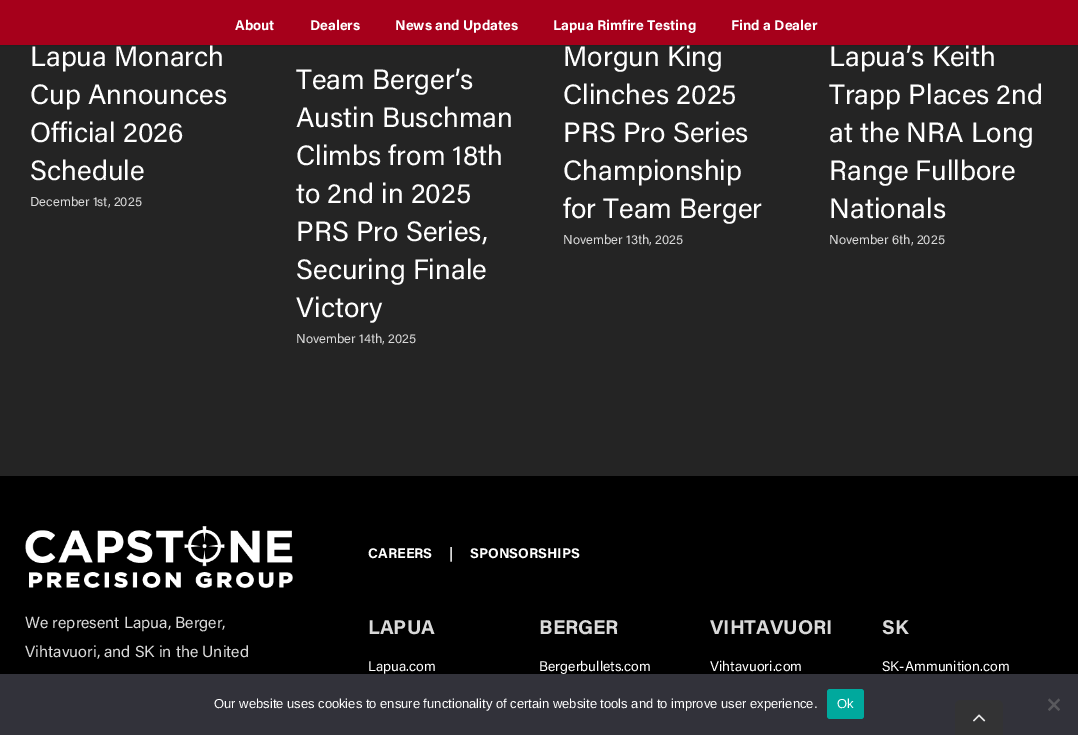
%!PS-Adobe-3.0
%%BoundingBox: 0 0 1078 735
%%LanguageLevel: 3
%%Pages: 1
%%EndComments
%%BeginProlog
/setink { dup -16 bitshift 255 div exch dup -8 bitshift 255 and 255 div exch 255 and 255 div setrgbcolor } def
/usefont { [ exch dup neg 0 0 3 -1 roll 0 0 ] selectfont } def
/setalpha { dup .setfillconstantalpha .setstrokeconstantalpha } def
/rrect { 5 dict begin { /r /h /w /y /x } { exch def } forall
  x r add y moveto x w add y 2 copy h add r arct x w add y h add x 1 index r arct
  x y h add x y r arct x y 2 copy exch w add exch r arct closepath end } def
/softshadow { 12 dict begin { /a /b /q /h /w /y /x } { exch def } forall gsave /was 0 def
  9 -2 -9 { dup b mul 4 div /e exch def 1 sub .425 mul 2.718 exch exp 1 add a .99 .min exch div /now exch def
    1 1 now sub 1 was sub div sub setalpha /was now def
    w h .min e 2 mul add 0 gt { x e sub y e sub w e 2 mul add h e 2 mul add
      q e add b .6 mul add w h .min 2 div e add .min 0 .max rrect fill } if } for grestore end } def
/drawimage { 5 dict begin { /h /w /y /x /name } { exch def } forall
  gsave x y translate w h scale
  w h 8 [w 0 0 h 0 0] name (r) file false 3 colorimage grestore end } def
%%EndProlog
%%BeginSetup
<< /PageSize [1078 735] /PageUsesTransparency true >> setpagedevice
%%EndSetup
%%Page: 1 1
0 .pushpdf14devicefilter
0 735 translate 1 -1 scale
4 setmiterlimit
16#242424 setink
0 0 1078 735 rectfill
16#000000 setink
0 1 1078 45 0 1.5 0.12 softshadow
16#A6001B setink
0 0 1078 45 rectfill
/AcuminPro-Bold 14 usefont
16#FFFFFF setink
[
    [(About) 235 30]
    [(Dealers) 310 30]
    [(News and Updates) 395 30]
    [(Lapua Rimfire Testing) 553 30]
    [(Find a Dealer) 731 30]
] { aload pop moveto show } forall
/AcuminPro-Regular 28 usefont
[
    [(Lapua Monarch) 30 66]
    [(Cup Announces) 30 104]
    [(Official 2026) 30 142]
    [(Schedule) 30 180]
] { aload pop moveto show } forall
/AcuminPro-Regular 13 usefont
16#D9D9D9 setink
30 206 moveto (December 1st, 2025) show
/AcuminPro-Regular 28 usefont
16#FFFFFF setink
[
    [(Team Berger’s) 296 89]
    [(Austin Buschman) 296 127]
    [(Climbs from 18th) 296 165]
    [(to 2nd in 2025) 296 203]
    [(PRS Pro Series,) 296 241]
    [(Securing Finale) 296 279]
    [(Victory) 296 317]
] { aload pop moveto show } forall
/AcuminPro-Regular 13 usefont
16#D9D9D9 setink
296 343 moveto (November 14th, 2025) show
/AcuminPro-Regular 28 usefont
16#FFFFFF setink
[
    [(Morgun King) 563 66]
    [(Clinches 2025) 563 104]
    [(PRS Pro Series) 563 142]
    [(Championship) 563 180]
    [(for Team Berger) 563 218]
] { aload pop moveto show } forall
/AcuminPro-Regular 13 usefont
16#D9D9D9 setink
563 244 moveto (November 13th, 2025) show
/AcuminPro-Regular 28 usefont
16#FFFFFF setink
[
    [(Lapua’s Keith) 829 66]
    [(Trapp Places 2nd) 829 104]
    [(at the NRA Long) 829 142]
    [(Range Fullbore) 829 180]
    [(Nationals) 829 218]
] { aload pop moveto show } forall
/AcuminPro-Regular 13 usefont
16#D9D9D9 setink
829 244 moveto (November 6th, 2025) show
16#000000 setink
0 476 1078 198 rectfill
(img1.raw) 25 526 268 62 drawimage
/AcuminPro-Bold 14 usefont
16#FFFFFF setink
368 558 moveto (CAREERS) show
16#D9D9D9 setink
449 558 moveto (|) show
16#FFFFFF setink
470 558 moveto (SPONSORSHIPS) show
/AcuminPro-Regular 16 usefont
16#D9D9D9 setink
25 628 moveto (We represent Lapua, Berger,) show
25 657 moveto (Vihtavuori, and SK in the United) show
/AcuminPro-Bold 20 usefont
368 634 moveto (LAPUA) show
/AcuminPro-Regular 14 usefont
16#FFFFFF setink
368 671 moveto (Lapua.com) show
/AcuminPro-Bold 20 usefont
16#D9D9D9 setink
539 634 moveto (BERGER) show
/AcuminPro-Regular 14 usefont
16#FFFFFF setink
539 671 moveto (Bergerbullets.com) show
/AcuminPro-Bold 20 usefont
16#D9D9D9 setink
710 634 moveto (VIHTAVUORI) show
/AcuminPro-Regular 14 usefont
16#FFFFFF setink
710 671 moveto (Vihtavuori.com) show
/AcuminPro-Bold 20 usefont
16#D9D9D9 setink
882 634 moveto (SK) show
/AcuminPro-Regular 14 usefont
16#FFFFFF setink
882 671 moveto (SK-Ammunition.com) show
16#32323A setink
0 674 1078 61 rectfill
/LiberationSans-Regular 13 usefont
16#FFFFFF setink
214 708 moveto (Our website uses cookies to ensure functionality of certain website tools and to improve user experience.) show
16#00A99D setink
827 689 37 30 3 rrect fill
16#FFFFFF setink
837 708 moveto (Ok) show
16#59595D setink
1058.5 698.5 moveto 1060 700 lineto 1049.5 711 lineto 1048 709.5 lineto closepath fill
1048 700 moveto 1049.5 698.5 lineto 1060 709.5 lineto 1058.5 711 lineto closepath fill
16#333334 setink
961 700 moveto 997 700 lineto 1000.5 700 1003 702.5 1003 706 curveto 1003 735 lineto 955 735 lineto 955 706 lineto 955 702.5 957.5 700 961 700 curveto closepath fill
(img2.raw) 973 714 13 8 drawimage
.poppdf14devicefilter showpage
%%EOF
